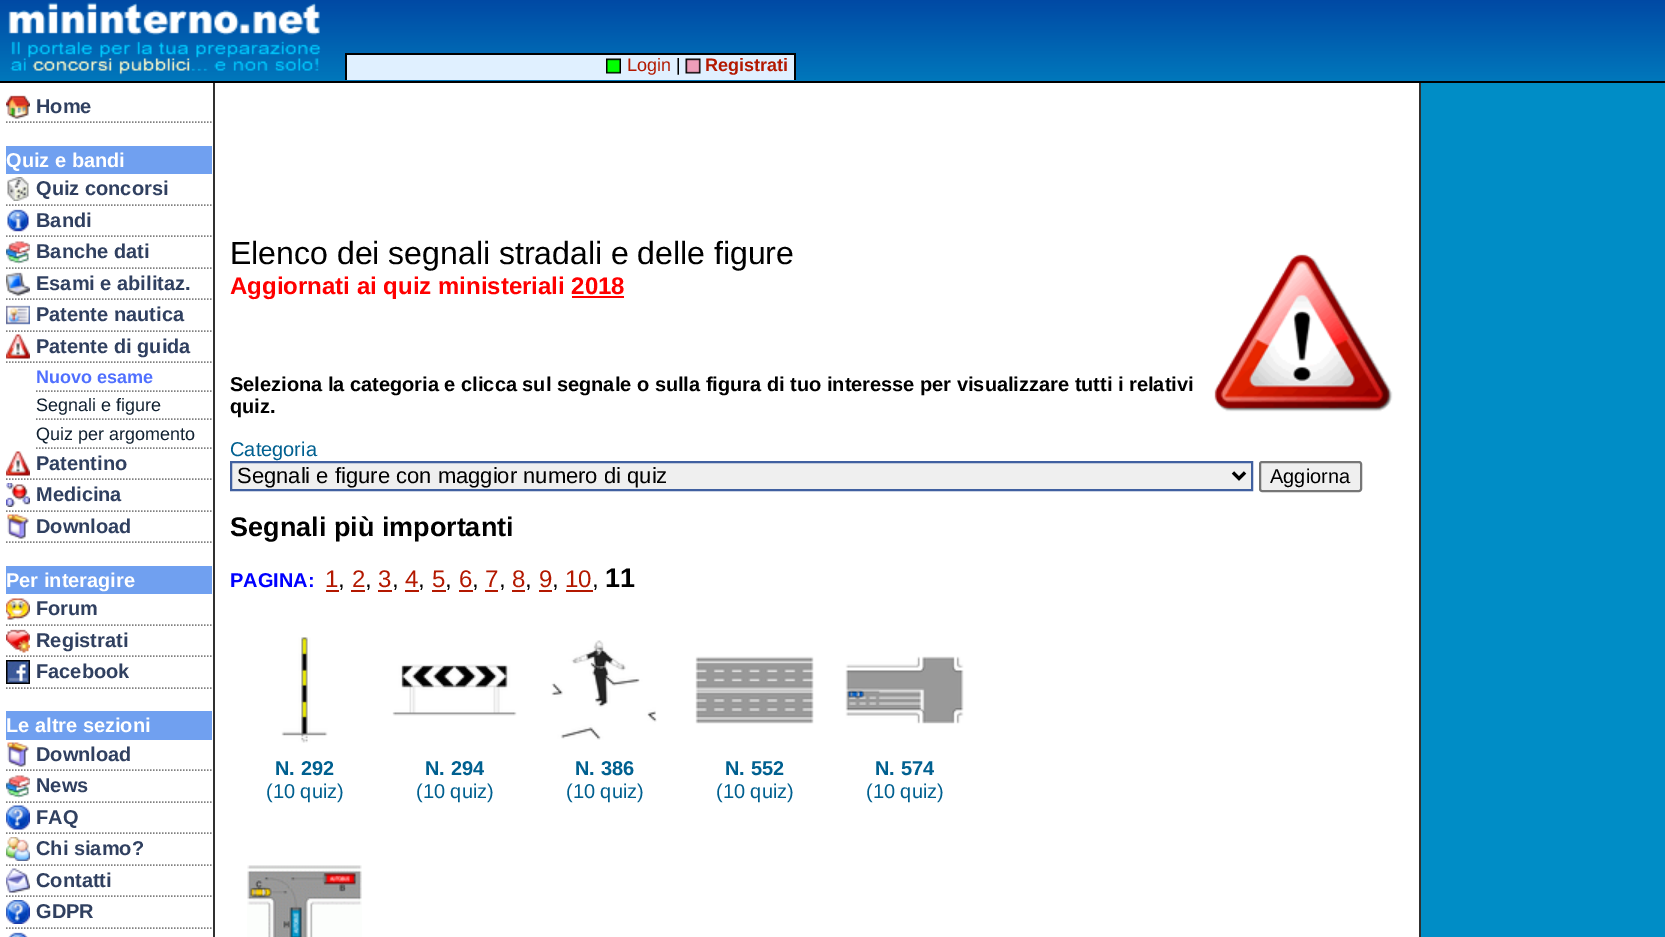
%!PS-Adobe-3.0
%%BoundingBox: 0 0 1665 937
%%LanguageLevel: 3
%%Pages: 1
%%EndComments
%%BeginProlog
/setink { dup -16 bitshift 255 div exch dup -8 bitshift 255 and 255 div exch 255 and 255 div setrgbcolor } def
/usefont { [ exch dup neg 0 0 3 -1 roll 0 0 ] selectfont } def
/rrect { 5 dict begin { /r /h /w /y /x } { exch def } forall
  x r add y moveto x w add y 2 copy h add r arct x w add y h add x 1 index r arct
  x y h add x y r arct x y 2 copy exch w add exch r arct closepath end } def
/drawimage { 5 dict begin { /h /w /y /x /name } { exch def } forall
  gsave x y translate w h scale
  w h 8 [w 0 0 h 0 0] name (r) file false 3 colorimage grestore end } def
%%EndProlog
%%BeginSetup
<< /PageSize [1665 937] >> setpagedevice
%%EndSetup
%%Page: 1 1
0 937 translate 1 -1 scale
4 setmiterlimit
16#FFFFFF setink
0 0 1665 937 rectfill
(img1.raw) 0 0 1665 81 drawimage
(img2.raw) 8 2 313 73 drawimage
[
    [347 55 447 25 16#E0F0FF]
    [345 53 450 2 16#000000]
    [794 53 2 27 16#000000]
    [345 53 2 27 16#000000]
] { aload pop setink rectfill } forall
(img3.raw) 606 58 15 16 drawimage
/LiberationSans-Regular 18 usefont
16#B31800 setink
627 71 moveto (Login) show
16#000000 setink
676 71 moveto (|) show
(img4.raw) 685 58 16 16 drawimage
/LiberationSans-Bold 18 usefont
16#B31800 setink
705 71 moveto (Registrati) show
16#000000 setink
0 81 1665 2 rectfill
16#808080 setink
1.5 setlinewidth
[1.5 1.5] 0 setdash
6 122 moveto 211.5 122 lineto stroke
(img5.raw) 6 95 24 24 drawimage
/LiberationSans-Bold 20 usefont
16#304060 setink
36 113 moveto (Home) show
16#70A0F0 setink
6 146 206 28 rectfill
16#FFFFFF setink
6 167 moveto (Quiz e bandi) show
16#808080 setink
6 205 moveto 211.5 205 lineto stroke
(img6.raw) 7 177 22 24 drawimage
16#304060 setink
36 195 moveto (Quiz concorsi) show
16#808080 setink
6 236 moveto 211.5 236 lineto stroke
(img7.raw) 7 209 22 23 drawimage
16#304060 setink
36 227 moveto (Bandi) show
16#808080 setink
6 268 moveto 211.5 268 lineto stroke
(img8.raw) 6 241 24 23 drawimage
16#304060 setink
36 258 moveto (Banche dati) show
16#808080 setink
6 299 moveto 211.5 299 lineto stroke
(img9.raw) 6 272 24 24 drawimage
16#304060 setink
36 290 moveto (Esami e abilitaz.) show
16#808080 setink
6 331 moveto 211.5 331 lineto stroke
(img10.raw) 6 305 24 20 drawimage
16#304060 setink
36 321 moveto (Patente nautica) show
16#808080 setink
6 362 moveto 211.5 362 lineto stroke
(img11.raw) 6 334 24 25 drawimage
16#304060 setink
36 353 moveto (Patente di guida) show
16#808080 setink
36 391 moveto 211.5 391 lineto stroke
/LiberationSans-Bold 18 usefont
16#5070FF setink
36 383 moveto (Nuovo esame) show
16#808080 setink
36 419 moveto 211.5 419 lineto stroke
/LiberationSans-Regular 18 usefont
16#102030 setink
36 411 moveto (Segnali e figure) show
16#808080 setink
36 448 moveto 211.5 448 lineto stroke
16#102030 setink
36 440 moveto (Quiz per argomento) show
16#808080 setink
6 479 moveto 211.5 479 lineto stroke
(img11.raw) 6 451 24 25 drawimage
/LiberationSans-Bold 20 usefont
16#304060 setink
36 470 moveto (Patentino) show
16#808080 setink
6 511 moveto 211.5 511 lineto stroke
(img12.raw) 6 483 24 24 drawimage
16#304060 setink
36 501 moveto (Medicina) show
16#808080 setink
6 542 moveto 211.5 542 lineto stroke
(img13.raw) 7 514 22 25 drawimage
16#304060 setink
36 533 moveto (Download) show
16#70A0F0 setink
6 566 206 28 rectfill
16#FFFFFF setink
6 587 moveto (Per interagire) show
16#808080 setink
6 625 moveto 211.5 625 lineto stroke
(img14.raw) 6 598 24 22 drawimage
16#304060 setink
36 615 moveto (Forum) show
16#808080 setink
6 656 moveto 211.5 656 lineto stroke
(img15.raw) 6 629 24 24 drawimage
16#304060 setink
36 647 moveto (Registrati) show
16#808080 setink
6 688 moveto 211.5 688 lineto stroke
(img16.raw) 6 660 24 24 drawimage
16#304060 setink
36 678 moveto (Facebook) show
16#70A0F0 setink
6 711 206 29 rectfill
16#FFFFFF setink
6 732 moveto (Le altre sezioni) show
16#808080 setink
6 770 moveto 211.5 770 lineto stroke
(img13.raw) 7 742 22 25 drawimage
16#304060 setink
36 761 moveto (Download) show
16#808080 setink
6 802 moveto 211.5 802 lineto stroke
(img8.raw) 6 775 24 23 drawimage
16#304060 setink
36 792 moveto (News) show
16#808080 setink
6 833 moveto 211.5 833 lineto stroke
(img17.raw) 6 805 24 25 drawimage
16#304060 setink
36 824 moveto (FAQ) show
16#808080 setink
6 865 moveto 211.5 865 lineto stroke
(img18.raw) 6 837 24 24 drawimage
16#304060 setink
36 855 moveto (Chi siamo?) show
16#808080 setink
6 896 moveto 211.5 896 lineto stroke
(img19.raw) 6 868 24 25 drawimage
16#304060 setink
36 887 moveto (Contatti) show
16#808080 setink
6 928 moveto 211.5 928 lineto stroke
(img20.raw) 6 900 24 24 drawimage
16#304060 setink
36 918 moveto (GDPR) show
(img21.raw) 8 932 20 5 drawimage
16#303030 setink
213 83 2 854 rectfill
/LiberationSans-Regular 32 usefont
16#000000 setink
230 264 moveto (Elenco dei segnali stradali e delle figure) show
/LiberationSans-Bold 24 usefont
16#FF0000 setink
230 294 moveto (Aggiornati ai quiz ministeriali 2018) show
572 296 52 2 rectfill
(img22.raw) 1214 254 179 158 drawimage
/LiberationSans-Bold 20 usefont
16#000000 setink
230 391 moveto (Seleziona la categoria e clicca sul segnale o sulla figura di tuo interesse per visualizzare tutti i relativi) show
230 413 moveto (quiz.) show
/LiberationSans-Regular 20 usefont
16#006090 setink
230 456 moveto (Categoria) show
16#EFEFEF setink
231 462 moveto 1252 462 lineto 1252 490 lineto 231 490 lineto closepath gsave fill grestore
16#4060A0 setink
2 setlinewidth
[] 0 setdash
stroke
16#000000 setink
3 setlinewidth
1233 472.5 moveto 1239 478.5 lineto 1245 472.5 lineto stroke
/LiberationSans-Regular 22 usefont
237 483 moveto (Segnali e figure con maggior numero di quiz) show
16#EFEFEF setink
1260 462 101 29 2 rrect gsave fill grestore
16#767676 setink
2 setlinewidth
stroke
/LiberationSans-Regular 20 usefont
16#000000 setink
1270 483 moveto (Aggiorna) show
/LiberationSans-Bold 27 usefont
230 536 moveto (Segnali più importanti) show
/LiberationSans-Bold 20 usefont
16#0000FF setink
230 587 moveto (PAGINA:) show
/LiberationSans-Regular 24 usefont
16#B31800 setink
325 587 moveto (1) show
16#000000 setink
338 587 moveto (,) show
16#B31800 setink
326 590 13 2 rectfill
352 587 moveto (2) show
16#000000 setink
365 587 moveto (,) show
16#B31800 setink
351 590 14 2 rectfill
378 587 moveto (3) show
16#000000 setink
392 587 moveto (,) show
16#B31800 setink
378 590 14 2 rectfill
405 587 moveto (4) show
16#000000 setink
418 587 moveto (,) show
16#B31800 setink
405 590 14 2 rectfill
432 587 moveto (5) show
16#000000 setink
445 587 moveto (,) show
16#B31800 setink
432 590 14 2 rectfill
459 587 moveto (6) show
16#000000 setink
472 587 moveto (,) show
16#B31800 setink
459 590 14 2 rectfill
485 587 moveto (7) show
16#000000 setink
499 587 moveto (,) show
16#B31800 setink
485 590 13 2 rectfill
512 587 moveto (8) show
16#000000 setink
525 587 moveto (,) show
16#B31800 setink
512 590 13 2 rectfill
539 587 moveto (9) show
16#000000 setink
552 587 moveto (,) show
16#B31800 setink
539 590 13 2 rectfill
565 587 moveto (10) show
16#000000 setink
592 587 moveto (,) show
16#B31800 setink
566 590 27 2 rectfill
/LiberationSans-Bold 27 usefont
16#000000 setink
605 587 moveto (11) show
(img23.raw) 281 637 47 106 drawimage
/LiberationSans-Bold 20 usefont
16#006090 setink
275 775 moveto (N. 292) show
/LiberationSans-Regular 20 usefont
266 798 moveto (\(10 quiz\)) show
(img24.raw) 392 664 125 52 drawimage
/LiberationSans-Bold 20 usefont
425 775 moveto (N. 294) show
/LiberationSans-Regular 20 usefont
416 798 moveto (\(10 quiz\)) show
(img25.raw) 551 640 106 100 drawimage
/LiberationSans-Bold 20 usefont
575 775 moveto (N. 386) show
/LiberationSans-Regular 20 usefont
566 798 moveto (\(10 quiz\)) show
(img26.raw) 695 656 119 68 drawimage
/LiberationSans-Bold 20 usefont
725 775 moveto (N. 552) show
/LiberationSans-Regular 20 usefont
716 798 moveto (\(10 quiz\)) show
(img27.raw) 845 656 119 68 drawimage
/LiberationSans-Bold 20 usefont
875 775 moveto (N. 574) show
/LiberationSans-Regular 20 usefont
866 798 moveto (\(10 quiz\)) show
(img28.raw) 247 865 115 72 drawimage
16#008DC6 setink
1421 83 244 854 rectfill
16#303030 setink
1419 83 2 854 rectfill
showpage
%%EOF
